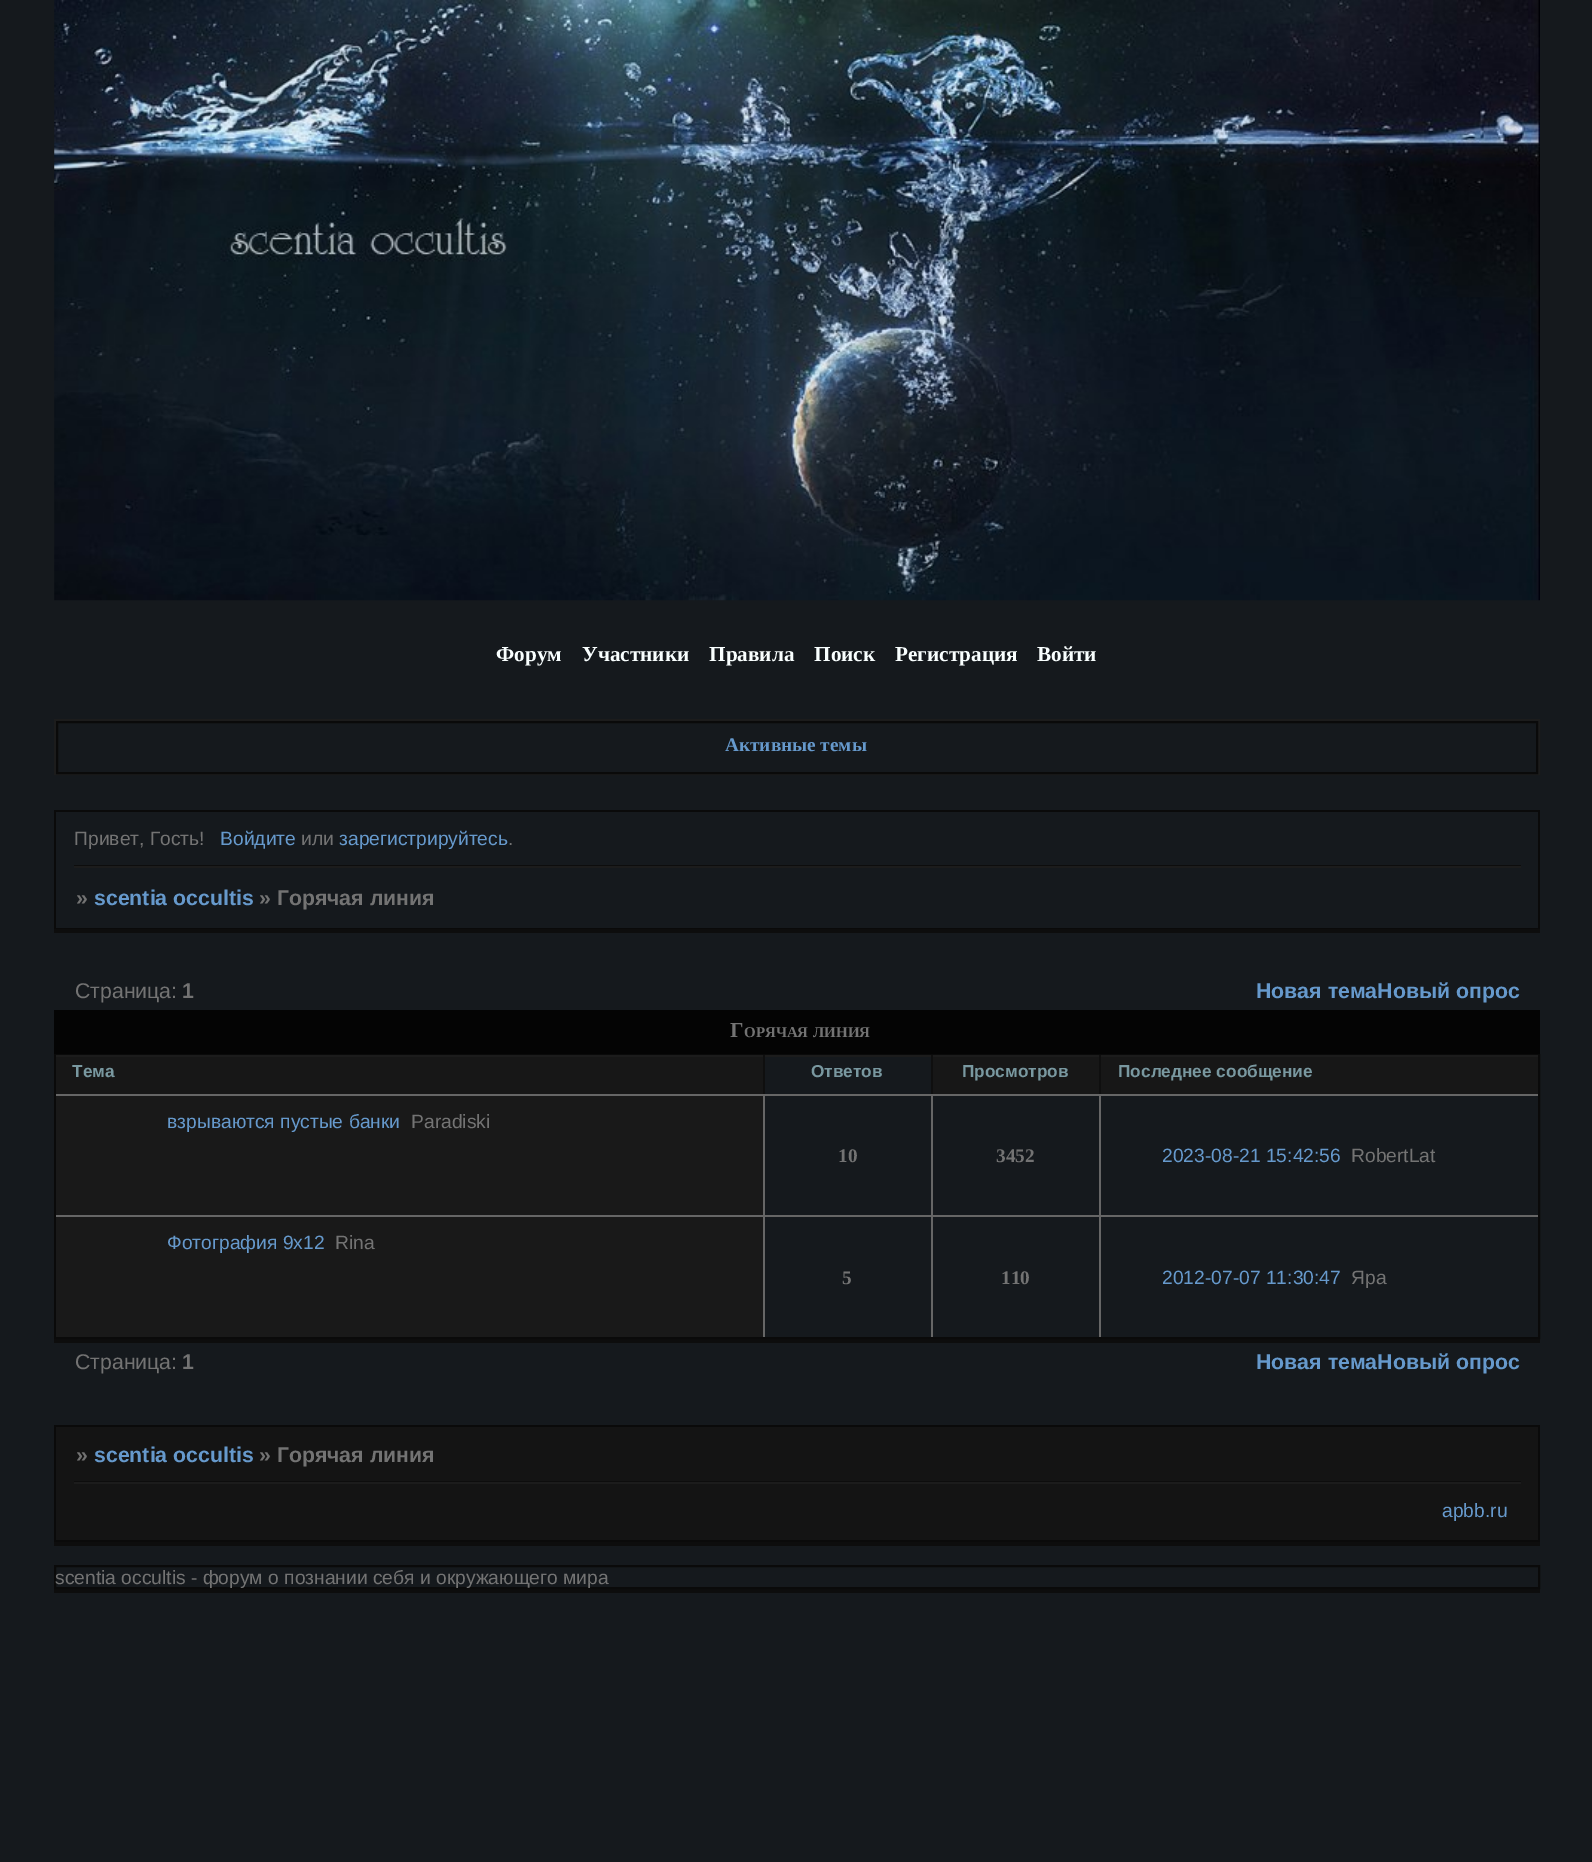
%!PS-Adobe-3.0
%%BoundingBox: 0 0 1592 1862
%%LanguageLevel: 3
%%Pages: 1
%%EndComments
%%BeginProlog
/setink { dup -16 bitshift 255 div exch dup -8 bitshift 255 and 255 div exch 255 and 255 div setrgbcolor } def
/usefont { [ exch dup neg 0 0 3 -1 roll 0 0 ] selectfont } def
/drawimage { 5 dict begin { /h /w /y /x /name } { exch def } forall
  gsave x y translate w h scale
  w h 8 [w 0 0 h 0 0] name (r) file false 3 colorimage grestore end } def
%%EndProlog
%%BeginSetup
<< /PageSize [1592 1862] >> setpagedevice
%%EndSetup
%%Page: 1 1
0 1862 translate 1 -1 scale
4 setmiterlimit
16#15191D setink
0 0 1592 1862 rectfill
(img1.raw) 54 0 1486 601 drawimage
/LiberationSerif-Bold 21.25 usefont
16#F9FFFF setink
[
    [(Форум) 496 661]
    [(Участники) 582 661]
    [(Правила) 709 661]
    [(Поиск) 814 661]
    [(Регистрация) 895 661]
    [(Войти) 1037 661]
] { aload pop moveto show } forall
16#1C1C1C setink
2 setlinewidth
55 720 1484 54 rectstroke
16#0A0A0A setink
57 722 1480 51 rectstroke
/LiberationSerif-Bold 19.25 usefont
16#6699CC setink
725 751 moveto (Активные темы) show
[
    [54 810 1486 2 16#0A0A0A]
    [1538 810 2 119 16#0A0A0A]
    [54 810 2 58 16#0A0A0A]
] { aload pop setink rectfill } forall
/LiberationSans-Regular 19.25 usefont
16#737373 setink
74 845 moveto (Привет, Гость!) show
16#6699CC setink
220 845 moveto (Войдите) show
16#737373 setink
301 845 moveto (или) show
16#6699CC setink
339 845 moveto (зарегистрируйтесь) show
16#737373 setink
508 845 moveto (.) show
[
    [74 865 1447 1 16#0D0D0D]
    [74 866 1447 2 16#1C1C1C]
    [54 929 1486 4 16#0D0D0D]
    [54 928 1486 1 16#0A0A0A]
    [54 865 2 64 16#0A0A0A]
] { aload pop setink rectfill } forall
/LiberationSans-Bold 21.25 usefont
16#737373 setink
76 905 moveto (») show
16#6699CC setink
94 905 moveto (scentia occultis) show
16#737373 setink
259 905 moveto (» Горячая линия) show
/LiberationSans-Regular 21.25 usefont
75 998 moveto (Страница:) show
/LiberationSans-Bold 21.25 usefont
182 998 moveto (1) show
16#6699CC setink
1256 998 moveto (Новая темаНовый опрос) show
16#040404 setink
54 1010 1486 44 rectfill
/LiberationSerif-Bold 21.25 usefont
16#737373 setink
730 1037 moveto (Г) show
/LiberationSerif-Bold 15 usefont
744 1037 moveto (ОРЯЧАЯ) show
813 1037 moveto (ЛИНИЯ) show
16#0D0D0D setink
54 1339 1486 4 rectfill
16#0A0A0A setink
55 1055 1484 283 rectstroke
16#171717 setink
56 1057 707 37 rectfill
/LiberationSans-Bold 17.25 usefont
16#7998A0 setink
72 1077 moveto (Тема) show
16#1C1C1C setink
56 1055 1482 2 rectfill
16#0F0F0F setink
763 1055 2 39 rectfill
16#7998A0 setink
811 1077 moveto (Ответов) show
16#171717 setink
933 1057 166 37 rectfill
16#0F0F0F setink
931 1055 2 39 rectfill
16#7998A0 setink
962 1077 moveto (Просмотров) show
16#171717 setink
1101 1057 437 37 rectfill
16#0F0F0F setink
1099 1055 2 39 rectfill
16#7998A0 setink
1118 1077 moveto (Последнее сообщение) show
16#191919 setink
56 1096 707 119 rectfill
/LiberationSans-Regular 19.25 usefont
16#6699CC setink
167 1128 moveto (взрываются пустые банки) show
16#737373 setink
411 1128 moveto (Paradiski) show
16#666666 setink
56 1094 1482 2 rectfill
763 1094 2 121 rectfill
/LiberationSerif-Bold 19.25 usefont
16#737373 setink
838 1162 moveto (10) show
16#666666 setink
931 1094 2 121 rectfill
16#737373 setink
996 1162 moveto (3452) show
16#666666 setink
56 1215 1482 2 rectfill
1099 1094 2 243 rectfill
/LiberationSans-Regular 19.25 usefont
16#6699CC setink
1162 1162 moveto (2023-08-21 15:42:56) show
16#737373 setink
1351 1162 moveto (RobertLat) show
16#191919 setink
56 1217 707 120 rectfill
16#6699CC setink
167 1249 moveto (Фотография 9х12) show
16#737373 setink
335 1249 moveto (Rina) show
16#666666 setink
763 1215 2 122 rectfill
/LiberationSerif-Bold 19.25 usefont
16#737373 setink
842 1284 moveto (5) show
16#666666 setink
931 1215 2 122 rectfill
16#737373 setink
1001 1284 moveto (110) show
/LiberationSans-Regular 19.25 usefont
16#6699CC setink
1162 1284 moveto (2012-07-07 11:30:47) show
16#737373 setink
1351 1284 moveto (Яра) show
/LiberationSans-Regular 21.25 usefont
75 1369 moveto (Страница:) show
/LiberationSans-Bold 21.25 usefont
182 1369 moveto (1) show
16#6699CC setink
1256 1369 moveto (Новая темаНовый опрос) show
[
    [54 1425 1486 2 16#0A0A0A]
    [1538 1481 2 61 16#0A0A0A]
    [1538 1425 2 59 16#0A0A0A]
    [54 1540 1486 2 16#0A0A0A]
    [54 1481 2 61 16#0A0A0A]
    [54 1425 2 59 16#0A0A0A]
    [56 1427 1482 113 16#141414]
] { aload pop setink rectfill } forall
16#737373 setink
76 1462 moveto (») show
16#6699CC setink
94 1462 moveto (scentia occultis) show
16#737373 setink
259 1462 moveto (» Горячая линия) show
[
    [74 1481 1447 1 16#0D0D0D]
    [74 1482 1447 2 16#1C1C1C]
    [54 1542 1486 4 16#0D0D0D]
] { aload pop setink rectfill } forall
/LiberationSans-Regular 19.25 usefont
16#6699CC setink
1442 1517 moveto (apbb.ru) show
16#0D0D0D setink
54 1589 1486 4 rectfill
16#0A0A0A setink
55 1566 1484 22 rectstroke
16#737373 setink
55 1584 moveto (scentia occultis - форум о познании себя и окружающего мира) show
showpage
%%EOF
